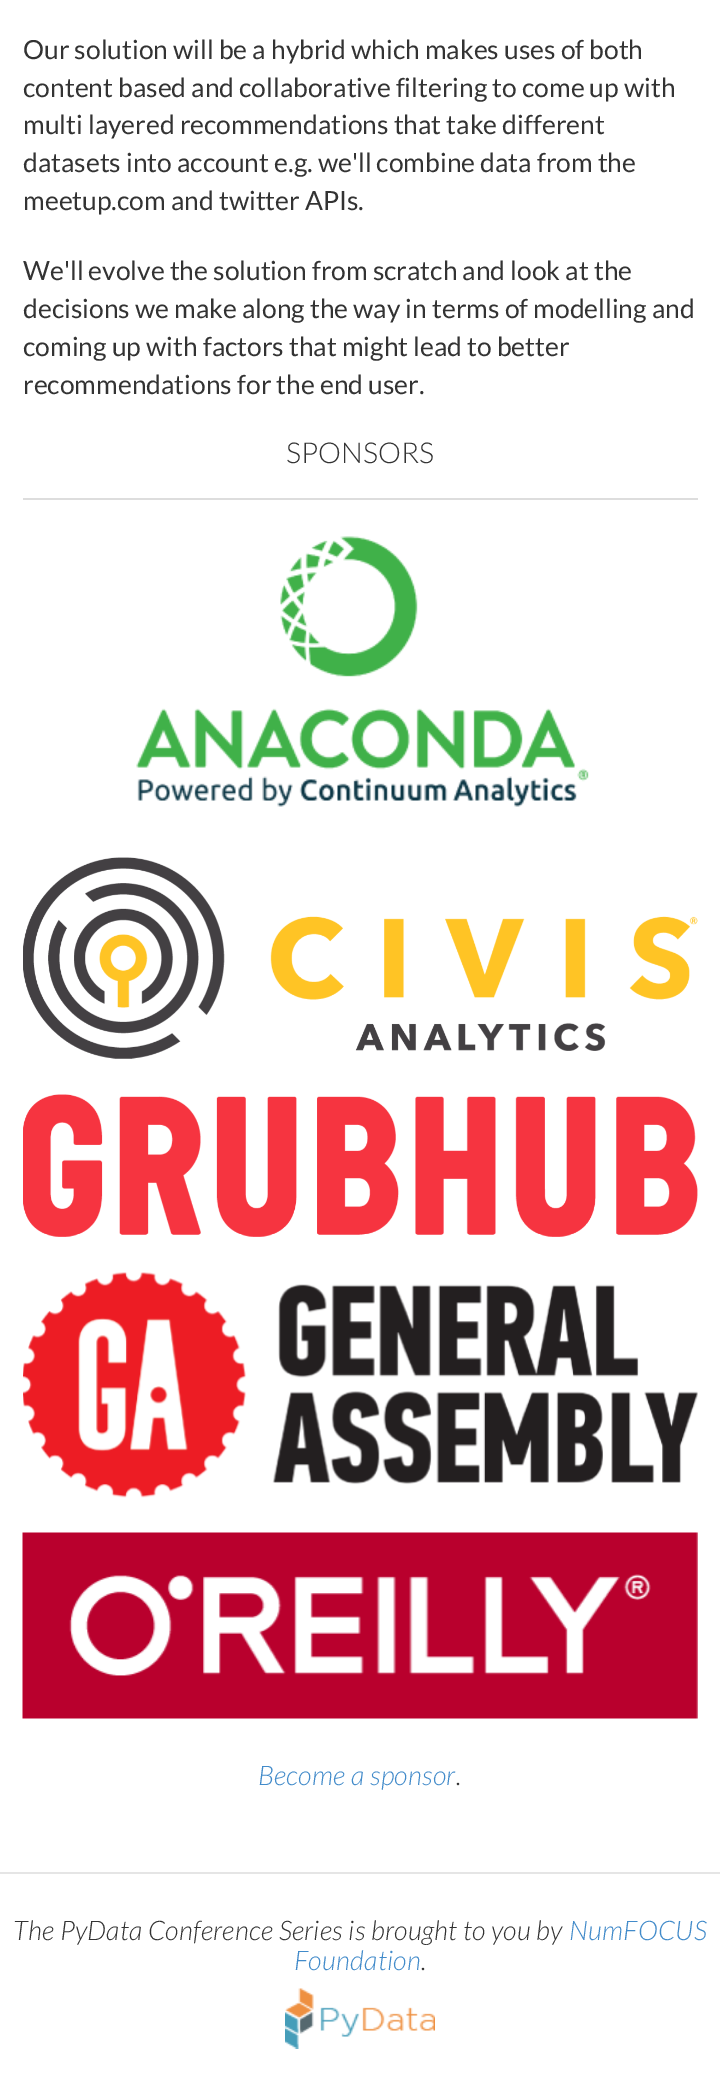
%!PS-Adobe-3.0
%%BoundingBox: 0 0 720 2087
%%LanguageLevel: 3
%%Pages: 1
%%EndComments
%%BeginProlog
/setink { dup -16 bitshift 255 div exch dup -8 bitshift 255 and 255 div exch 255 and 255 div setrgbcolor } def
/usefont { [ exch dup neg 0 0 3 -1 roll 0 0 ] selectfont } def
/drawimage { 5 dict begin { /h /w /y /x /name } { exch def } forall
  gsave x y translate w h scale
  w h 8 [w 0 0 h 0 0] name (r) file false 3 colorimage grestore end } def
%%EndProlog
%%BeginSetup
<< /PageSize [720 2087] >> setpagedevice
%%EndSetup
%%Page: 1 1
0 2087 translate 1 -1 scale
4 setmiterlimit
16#FFFFFF setink
0 0 720 2087 rectfill
/Lato-Regular 26.4 usefont
16#333333 setink
[
    [(Our solution will be a hybrid which makes uses of both) 23 59]
    [(content based and collaborative filtering to come up with) 23 97]
    [(multi layered recommendations that take different) 23 134]
    [(datasets into account e.g. we'll combine data from the) 23 172]
    [(meetup.com and twitter APIs.) 23 210]
    [(We'll evolve the solution from scratch and look at the) 23 280]
    [(decisions we make along the way in terms of modelling and) 23 318]
    [(coming up with factors that might lead to better) 23 356]
    [(recommendations for the end user.) 23 394]
] { aload pop moveto show } forall
/Lato-Light 28.75 usefont
286 463 moveto (SPONSORS) show
16#DDDDDD setink
23 498 675 2 rectfill
(img1.raw) 136 536 453 271 drawimage
(img2.raw) 23 857 675 202 drawimage
(img3.raw) 23 1094 675 143 drawimage
(img4.raw) 23 1272 675 226 drawimage
(img5.raw) 22 1532 676 187 drawimage
/Lato-LightItalic 27 usefont
16#428BCA setink
258 1785 moveto 0.25 0 (Become a sponsor) ashow
16#333333 setink
456 1785 moveto 0.25 0 (.) ashow
16#E5E5E5 setink
0 1872 720 2 rectfill
16#333333 setink
13 1940 moveto 0.25 0 (The PyData Conference Series is brought to you by) ashow
16#428BCA setink
569 1940 moveto 0.25 0 (NumFOCUS) ashow
294 1970 moveto 0.25 0 (Foundation) ashow
16#333333 setink
421 1970 moveto 0.25 0 (.) ashow
(img6.raw) 285 1988 150 61 drawimage
showpage
%%EOF
